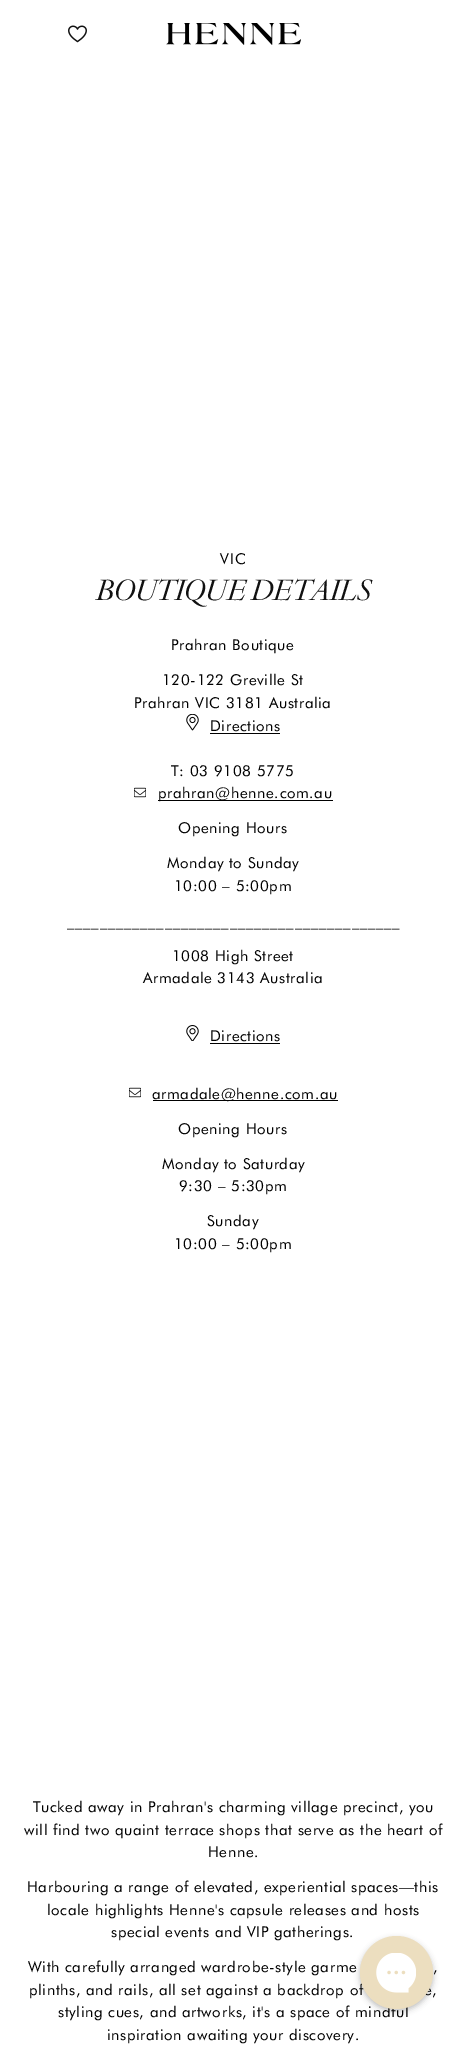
%!PS-Adobe-3.0
%%BoundingBox: 0 0 466 2046
%%LanguageLevel: 3
%%Pages: 1
%%EndComments
%%BeginProlog
/setink { dup -16 bitshift 255 div exch dup -8 bitshift 255 and 255 div exch 255 and 255 div setrgbcolor } def
/usefont { [ exch dup neg 0 0 3 -1 roll 0 0 ] selectfont } def
/setalpha { dup .setfillconstantalpha .setstrokeconstantalpha } def
/disc { newpath 0 360 arc closepath } def
/rrect { 5 dict begin { /r /h /w /y /x } { exch def } forall
  x r add y moveto x w add y 2 copy h add r arct x w add y h add x 1 index r arct
  x y h add x y r arct x y 2 copy exch w add exch r arct closepath end } def
/softshadow { 12 dict begin { /a /b /q /h /w /y /x } { exch def } forall gsave /was 0 def
  9 -2 -9 { dup b mul 4 div /e exch def 1 sub .425 mul 2.718 exch exp 1 add a .99 .min exch div /now exch def
    1 1 now sub 1 was sub div sub setalpha /was now def
    w h .min e 2 mul add 0 gt { x e sub y e sub w e 2 mul add h e 2 mul add
      q e add b .6 mul add w h .min 2 div e add .min 0 .max rrect fill } if } for grestore end } def
/drawimage { 5 dict begin { /h /w /y /x /name } { exch def } forall
  gsave x y translate w h scale
  w h 8 [w 0 0 h 0 0] name (r) file false 3 colorimage grestore end } def
%%EndProlog
%%BeginSetup
<< /PageSize [466 2046] /PageUsesTransparency true >> setpagedevice
%%EndSetup
%%Page: 1 1
0 .pushpdf14devicefilter
0 2046 translate 1 -1 scale
4 setmiterlimit
16#FFFFFF setink
0 0 466 2046 rectfill
(img1.raw) 68 25 19 18 drawimage
(img2.raw) 166 23 135 22 drawimage
/Futura-Regular 15 usefont
16#000000 setink
220 564 moveto 1 0 (VIC) ashow
/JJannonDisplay-Italic 30 usefont
16#111111 setink
96 600 moveto -0.6 0 (BOUTIQUE DETAILS) ashow
/Futura-Regular 15 usefont
16#000000 setink
171 650 moveto 0.63 0 (Prahran Boutique) ashow
162 685 moveto 0.63 0 (120-122 Greville St) ashow
134 708 moveto 0.63 0 (Prahran VIC 3181 Australia) ashow
(img3.raw) 186 714 13 17 drawimage
210 731 moveto 0.63 0 (Directions) ashow
210 733 70 1 rectfill
171 776 moveto 0.63 0 (T: 03 9108 5775) ashow
(img4.raw) 134 787 12 11 drawimage
158 800 175 1 rectfill
158 798 moveto 0.63 0 (prahran@henne.com.au) ashow
178 833 moveto 0.63 0 (Opening Hours) ashow
167 868 moveto 0.63 0 (Monday to Sunday) ashow
174 891 moveto 0.63 0 (10:00 – 5:00pm) ashow
67 926 moveto 0.63 0 (_________________________________________) ashow
172 961 moveto 0.63 0 (1008 High Street) ashow
143 983 moveto 0.63 0 (Armadale 3143 Australia) ashow
(img5.raw) 186 1025 13 16 drawimage
210 1041 moveto 0.63 0 (Directions) ashow
210 1043 70 1 rectfill
(img4.raw) 129 1087 12 11 drawimage
153 1100 185 1 rectfill
152 1099 moveto 0.63 0 (armadale@henne.com.au) ashow
178 1134 moveto 0.63 0 (Opening Hours) ashow
162 1169 moveto 0.63 0 (Monday to Saturday) ashow
179 1191 moveto 0.63 0 (9:30 – 5:30pm) ashow
207 1226 moveto 0.63 0 (Sunday) ashow
174 1249 moveto 0.63 0 (10:00 – 5:00pm) ashow
33 1812 moveto 0.63 0 (Tucked away in Prahran's charming village precinct, you) ashow
24 1835 moveto 0.63 0 (will find two quaint terrace shops that serve as the heart of) ashow
208 1857 moveto 0.63 0 (Henne.) ashow
27 1892 moveto 0.63 0 (Harbouring a range of elevated, experiential spaces—this) ashow
47 1915 moveto 0.63 0 (locale highlights Henne's capsule releases and hosts) ashow
111 1937 moveto 0.63 0 (special events and VIP gatherings.) ashow
28 1972 moveto 0.63 0 (With carefully arranged wardrobe-style garme) ashow
433 1972 moveto 0.63 0 (,) ashow
29 1995 moveto 0.63 0 (plinths, and rails, all set against a backdrop of) ashow
424 1995 moveto 0.63 0 (e,) ashow
58 2017 moveto 0.63 0 (styling cues, and artworks, it's a space of mindful) ashow
107 2040 moveto 0.63 0 (inspiration awaiting your discovery.) ashow
360 1939 73 72 36 3 0.25 softshadow
16#ECDEBF setink
396.5 1972.5 36.5 disc fill
(img6.raw) 376 1953 40 40 drawimage
.poppdf14devicefilter showpage
%%EOF
